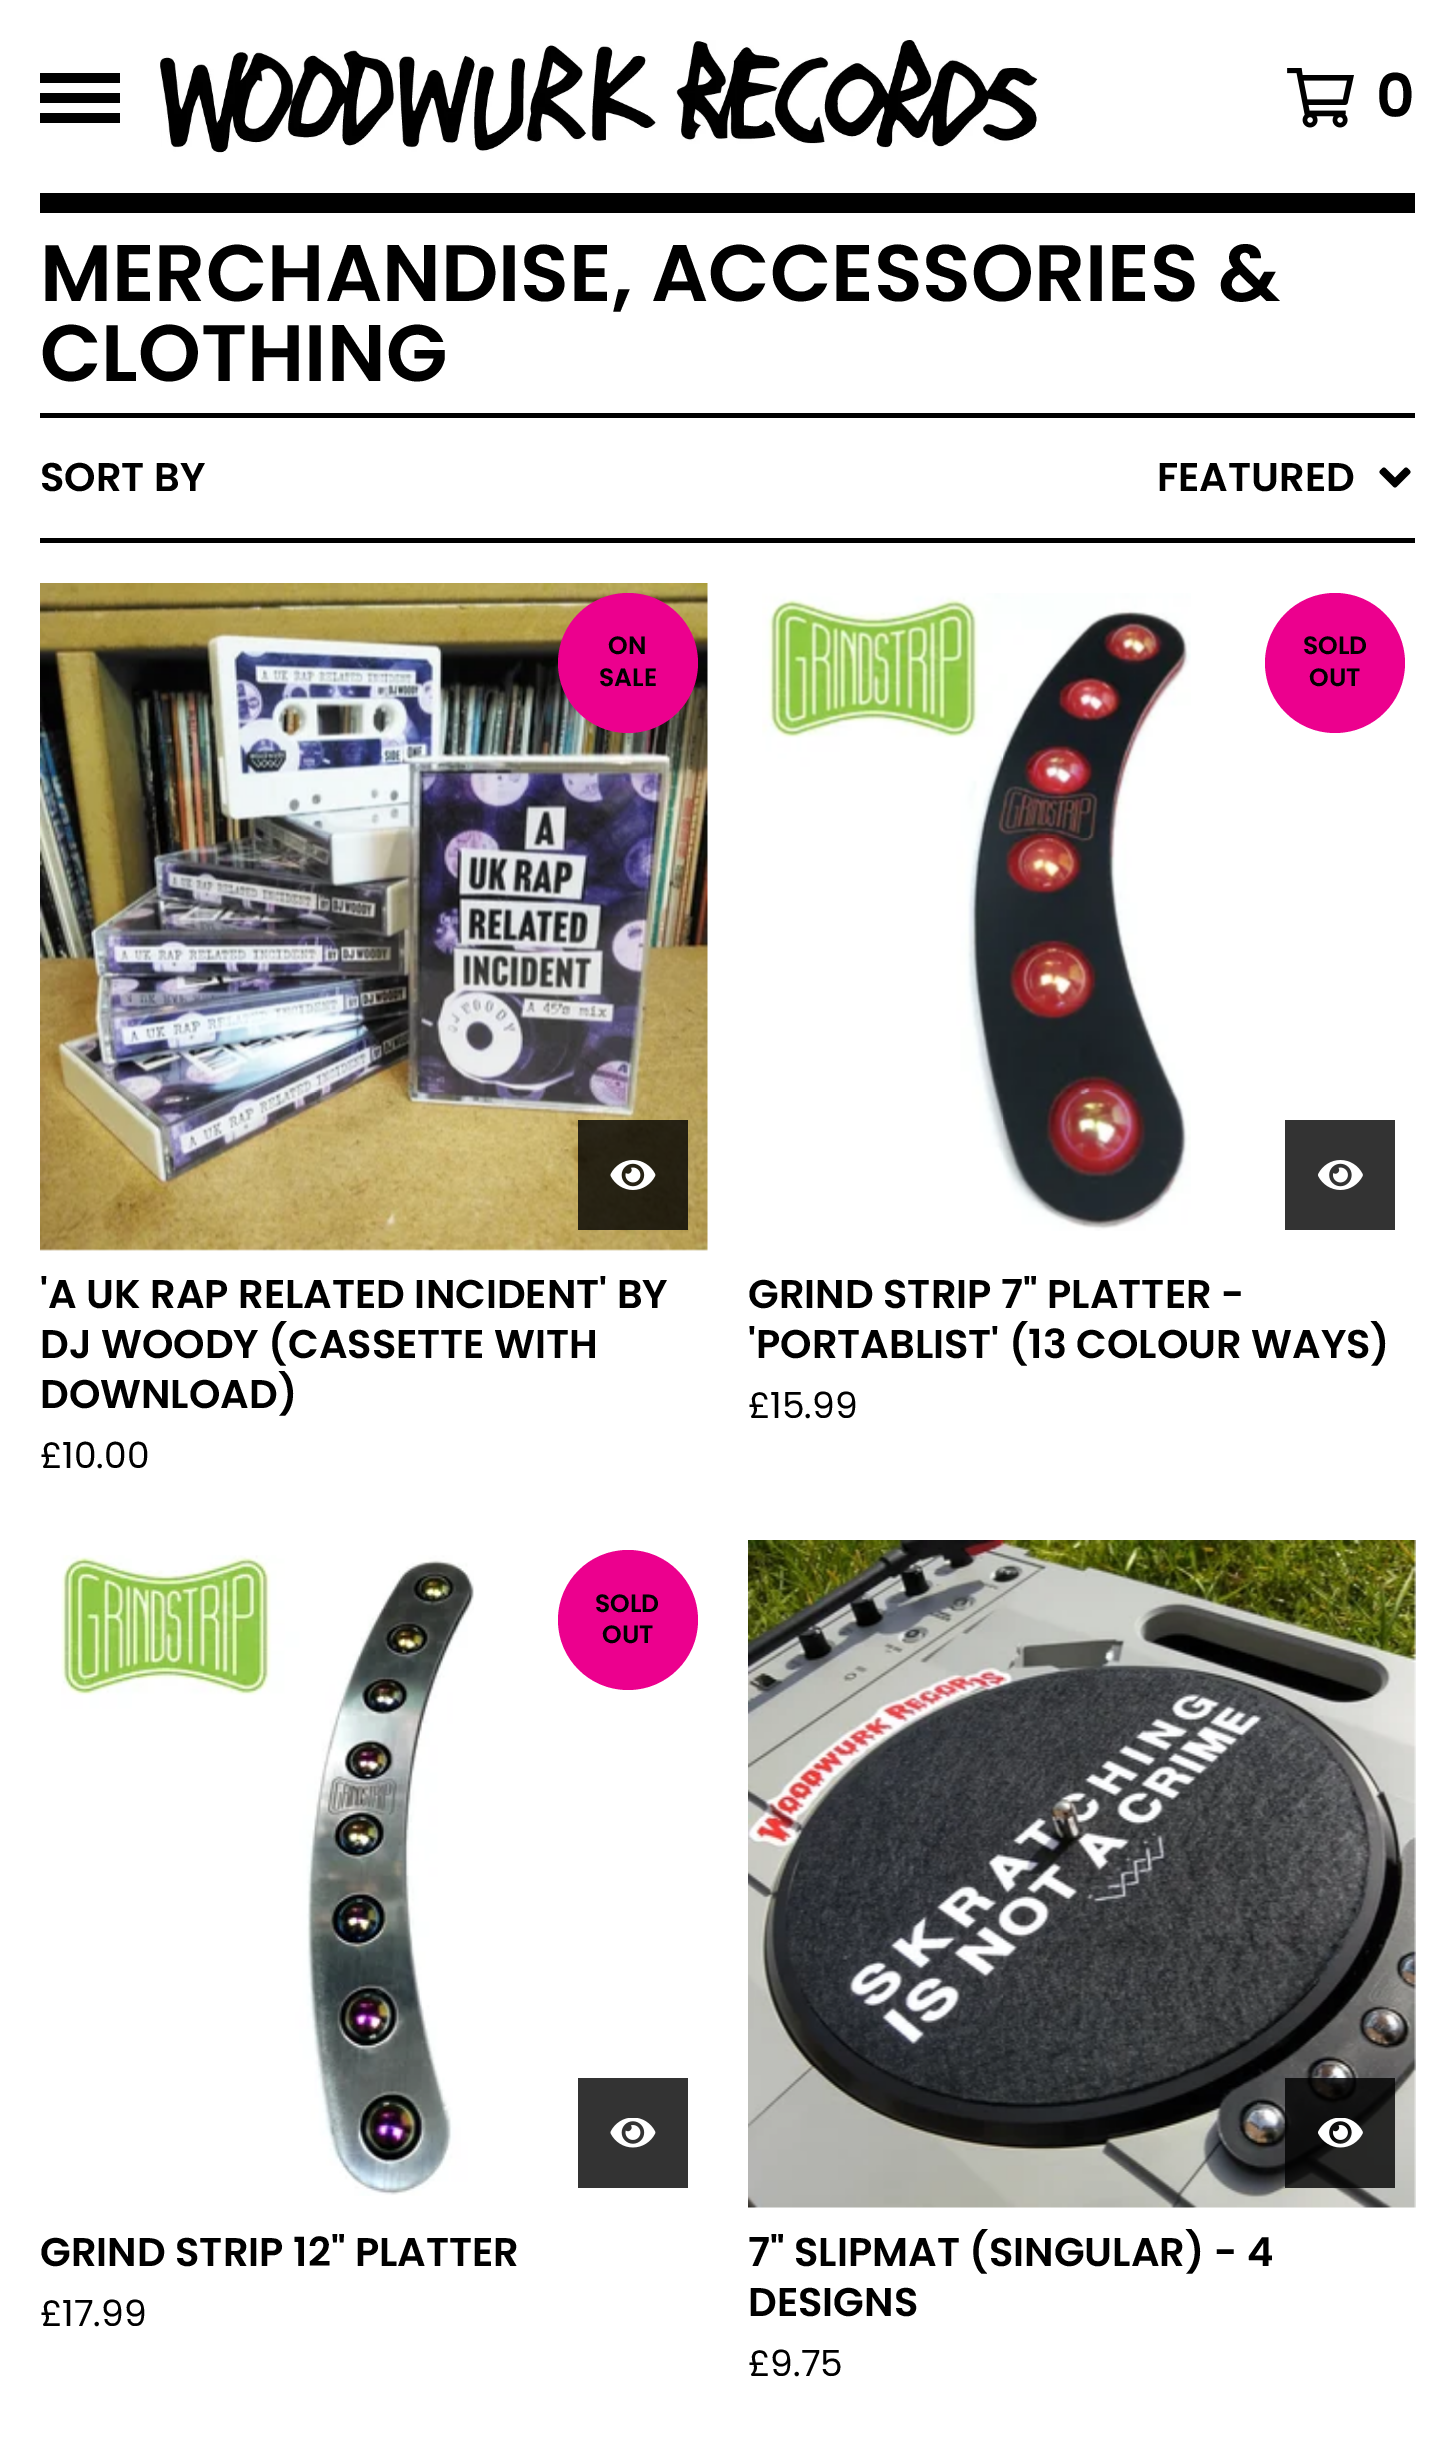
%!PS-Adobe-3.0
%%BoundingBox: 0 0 1455 2438
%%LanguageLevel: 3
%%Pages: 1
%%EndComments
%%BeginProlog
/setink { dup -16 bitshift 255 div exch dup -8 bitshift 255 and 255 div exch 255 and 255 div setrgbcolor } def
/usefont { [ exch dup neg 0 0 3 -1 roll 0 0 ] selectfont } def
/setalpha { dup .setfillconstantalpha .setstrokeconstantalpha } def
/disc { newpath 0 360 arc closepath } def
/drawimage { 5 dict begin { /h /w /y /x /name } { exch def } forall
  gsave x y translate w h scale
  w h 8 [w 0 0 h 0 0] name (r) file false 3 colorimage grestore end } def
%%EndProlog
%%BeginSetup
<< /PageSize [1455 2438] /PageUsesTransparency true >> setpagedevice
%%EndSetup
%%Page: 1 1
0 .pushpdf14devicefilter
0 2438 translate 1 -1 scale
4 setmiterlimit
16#FFFFFF setink
0 0 1455 2438 rectfill
[
    [40 193 1375 20 16#000000]
    [40 93 80 10 16#000000]
    [40 73 80 10 16#000000]
    [40 113 80 10 16#000000]
] { aload pop setink rectfill } forall
(img1.raw) 160 40 878 113 drawimage
(img2.raw) 1287 68 67 60 drawimage
/Poppins-SemiBold 60 usefont
1376 117 moveto (0) show
40 538 1375 5 rectfill
40 413 1375 5 rectfill
/Poppins-SemiBold 80 usefont
40 301 moveto (MERCHANDISE, ACCESSORIES &) show
40 381 moveto (CLOTHING) show
/Poppins-SemiBold 40 usefont
40 491 moveto (SORT BY) show
1157 491 moveto (FEATURED) show
(img3.raw) 1379 467 32 21 drawimage
(img4.raw) 40 583 668 668 drawimage
16#EC008E setink
628 663 70 disc fill
/Poppins-SemiBold 25 usefont
16#000000 setink
608 654 moveto (ON) show
599 686 moveto (SALE) show
0.8 setalpha
578 1120 110 110 rectfill
1 setalpha
(img5.raw) 610 1160 46 30 drawimage
/Poppins-SemiBold 40 usefont
[
    [('A UK RAP RELATED INCIDENT' BY) 40 1308]
    [(DJ WOODY \(CASSETTE WITH) 40 1358]
    [(DOWNLOAD\)) 40 1408]
] { aload pop moveto show } forall
/Poppins-Regular 36 usefont
40 1468 moveto (£10.00) show
(img6.raw) 762 593 429 638 drawimage
16#EC008E setink
1335 663 70 disc fill
/Poppins-SemiBold 25 usefont
16#000000 setink
1303 654 moveto (SOLD) show
1309 686 moveto (OUT) show
16#333333 setink
1285 1120 110 110 rectfill
(img7.raw) 1318 1160 45 30 drawimage
/Poppins-SemiBold 40 usefont
16#000000 setink
748 1308 moveto (GRIND STRIP 7" PLATTER -) show
748 1358 moveto ('PORTABLIST' \(13 COLOUR WAYS\)) show
/Poppins-Regular 36 usefont
748 1418 moveto (£15.99) show
(img8.raw) 61 1555 413 641 drawimage
16#EC008E setink
628 1620 70 disc fill
/Poppins-SemiBold 25 usefont
16#000000 setink
595 1612 moveto (SOLD) show
602 1643 moveto (OUT) show
16#333333 setink
578 2078 110 110 rectfill
(img9.raw) 610 2118 46 30 drawimage
/Poppins-SemiBold 40 usefont
16#000000 setink
40 2266 moveto (GRIND STRIP 12" PLATTER) show
/Poppins-Regular 36 usefont
40 2326 moveto (£17.99) show
(img10.raw) 748 1540 668 668 drawimage
0.8 setalpha
1285 2078 110 110 rectfill
1 setalpha
(img11.raw) 1318 2118 45 30 drawimage
/Poppins-SemiBold 40 usefont
748 2266 moveto (7" SLIPMAT \(SINGULAR\) - 4) show
748 2316 moveto (DESIGNS) show
/Poppins-Regular 36 usefont
748 2376 moveto (£9.75) show
.poppdf14devicefilter showpage
%%EOF
